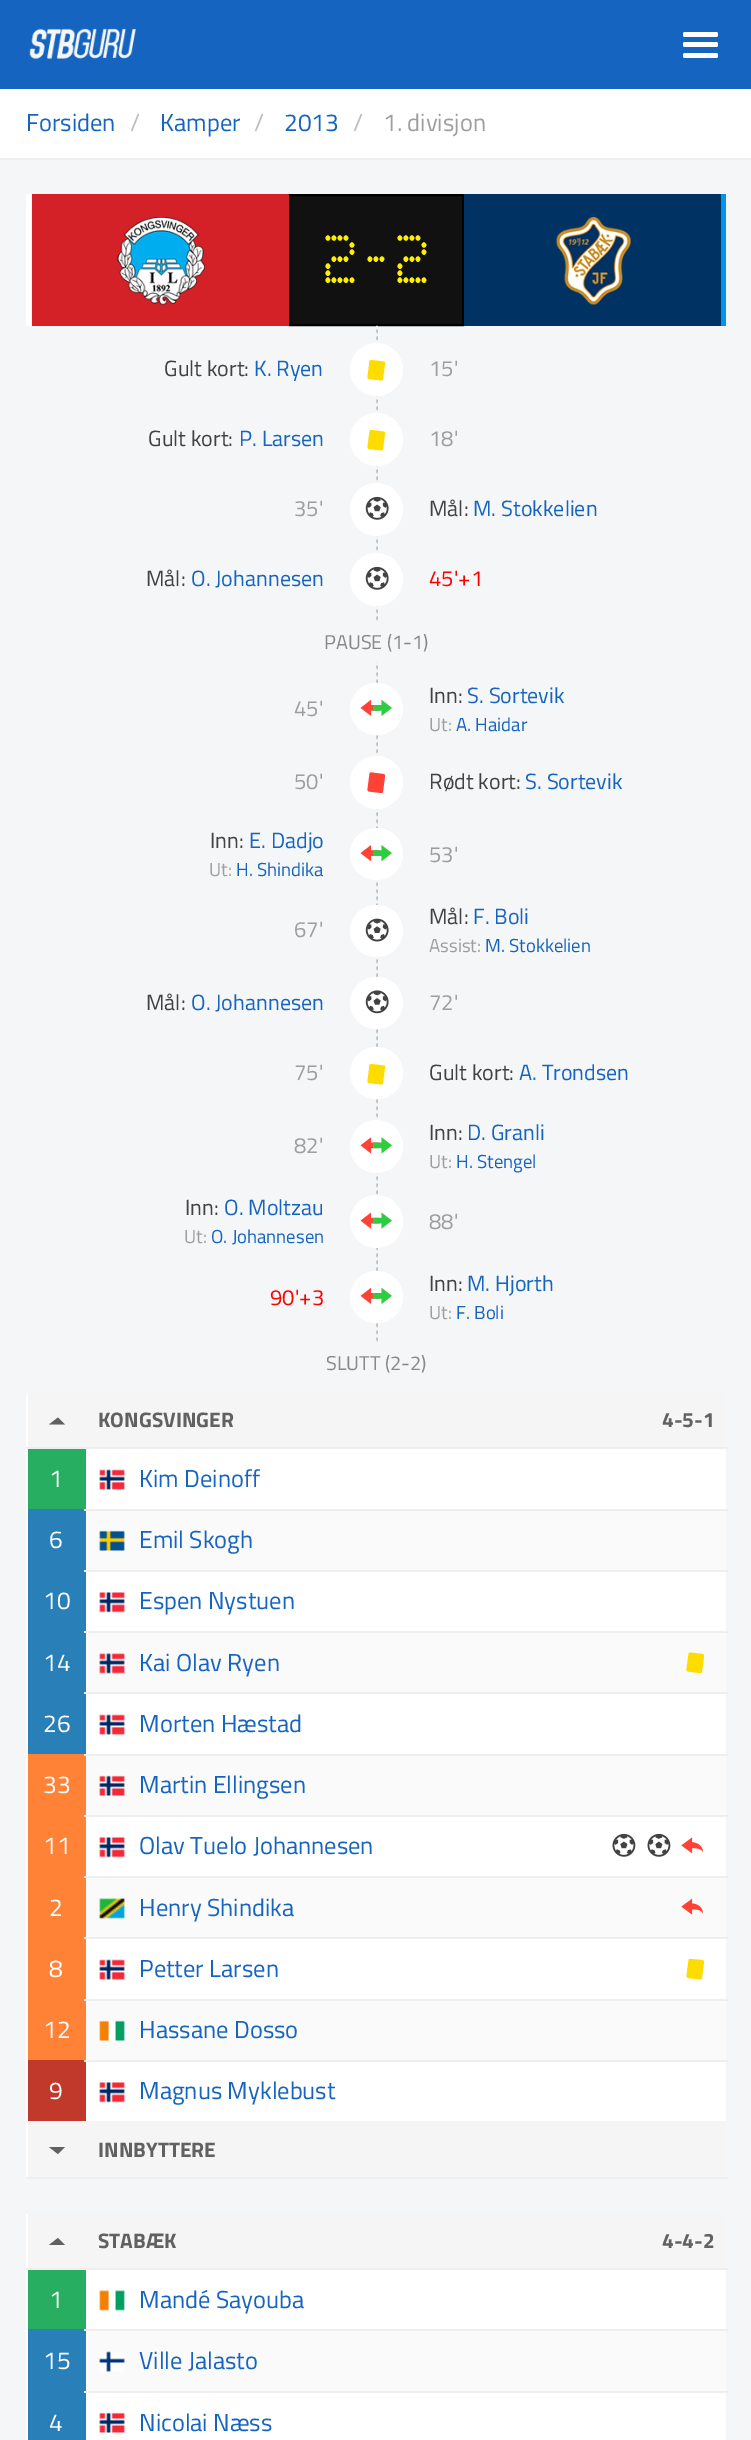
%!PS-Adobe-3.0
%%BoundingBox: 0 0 751 2440
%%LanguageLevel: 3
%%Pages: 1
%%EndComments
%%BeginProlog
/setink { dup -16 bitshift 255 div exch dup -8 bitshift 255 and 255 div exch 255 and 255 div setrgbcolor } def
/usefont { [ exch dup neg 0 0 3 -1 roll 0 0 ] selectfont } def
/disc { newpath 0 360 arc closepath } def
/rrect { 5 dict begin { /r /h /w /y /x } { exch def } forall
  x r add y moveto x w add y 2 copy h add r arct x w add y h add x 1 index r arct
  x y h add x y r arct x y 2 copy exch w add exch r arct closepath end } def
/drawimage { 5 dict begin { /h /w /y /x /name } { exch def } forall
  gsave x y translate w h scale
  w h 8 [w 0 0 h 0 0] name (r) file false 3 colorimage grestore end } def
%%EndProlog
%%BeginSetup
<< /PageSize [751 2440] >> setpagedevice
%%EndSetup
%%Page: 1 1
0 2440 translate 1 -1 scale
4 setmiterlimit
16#F5F6F7 setink
0 0 751 2440 rectfill
16#1565C0 setink
0 0 751 89 rectfill
(img1.raw) 29 28 107 31 drawimage
16#FFFFFF setink
683 32 35 5 2 rrect fill
683 42 35 5 2 rrect fill
683 53 35 5 2 rrect fill
0 89 751 69 rectfill
16#EEEEEE setink
0 158 751 2 rectfill
/TitilliumWeb-Regular 24.5 usefont
16#1565C0 setink
26 131 moveto (Forsiden) show
16#BDBDBD setink
130 131 moveto (/) show
16#1565C0 setink
160 131 moveto (Kamper) show
16#BDBDBD setink
254 131 moveto (/) show
16#1565C0 setink
284 131 moveto (2013) show
16#BDBDBD setink
353 131 moveto (/) show
16#9E9E9E setink
383 131 moveto (1. divisjon) show
16#D42027 setink
32 194 257 132 rectfill
(img2.raw) 117 217 88 88 drawimage
16#FFFFFF setink
26 194 5 132 rectfill
16#111111 setink
290 195 moveto 463 195 lineto 463 325 lineto 290 325 lineto closepath gsave fill grestore
16#000000 setink
2 setlinewidth
stroke
/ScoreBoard-Regular 68 usefont
16#FFF000 setink
322 283 moveto (2-2) show
16#003263 setink
464 194 257 132 rectfill
(img3.raw) 556 217 75 88 drawimage
16#0094EE setink
721 194 5 132 rectfill
(img4.raw) 376 325 2 1017 drawimage
/TitilliumWeb-Regular 22 usefont
16#424242 setink
164 376 moveto (Gult kort:) show
16#1565C0 setink
254 376 moveto (K. Ryen) show
16#FFFFFF setink
376.5 369.5 26.5 disc fill
16#FFDC00 setink
371.5 360 moveto 383.5 361.5 lineto 384.5 361.5 385 362.5 385 363.5 curveto 383 379 lineto 383 380 382 380.5 381 380.5 curveto 369 379 lineto 368 379 367.5 378 367.5 377 curveto 369.5 361.5 lineto 369.5 360.5 370.5 359.5 371.5 360 curveto closepath fill
16#9E9E9E setink
429 376 moveto (15') show
16#424242 setink
148 446 moveto (Gult kort:) show
16#1565C0 setink
239 446 moveto (P. Larsen) show
16#FFFFFF setink
376.5 439.5 26.5 disc fill
16#FFDC00 setink
371.5 430 moveto 383.5 431.5 lineto 384.5 431.5 385 432.5 385 433.5 curveto 383 449 lineto 383 450 382 450.5 381 450.5 curveto 369 449 lineto 368 449 367.5 448 367.5 447 curveto 369.5 431.5 lineto 369.5 430.5 370.5 429.5 371.5 430 curveto closepath fill
16#9E9E9E setink
429 446 moveto (18') show
294 516 moveto (35') show
16#FFFFFF setink
376.5 509.5 26.5 disc fill
(img5.raw) 365 496 24 24 drawimage
16#424242 setink
429 516 moveto (Mål:) show
16#1565C0 setink
473 516 moveto (M. Stokkelien) show
16#424242 setink
146 586 moveto (Mål:) show
16#1565C0 setink
191 586 moveto (O. Johannesen) show
16#FFFFFF setink
376.5 579.5 26.5 disc fill
(img5.raw) 365 566 24 24 drawimage
16#FF0000 setink
429 586 moveto (45'+1) show
16#F5F6F7 setink
376 623 2 39 rectfill
/TitilliumWeb-Regular 20 usefont
16#888888 setink
324 649 moveto (PAUSE \(1-1\)) show
/TitilliumWeb-Regular 22 usefont
16#9E9E9E setink
294 716 moveto (45') show
16#FFFFFF setink
350 683 53 52 26 rrect fill
(img6.raw) 360 699 20 17 drawimage
(img7.raw) 372 699 20 17 drawimage
16#424242 setink
429 703 moveto (Inn:) show
16#1565C0 setink
467 703 moveto (S. Sortevik) show
/TitilliumWeb-Regular 18.75 usefont
16#9E9E9E setink
429 731 moveto (Ut:) show
16#1565C0 setink
456 731 moveto (A. Haidar) show
/TitilliumWeb-Regular 22 usefont
16#9E9E9E setink
294 789 moveto (50') show
16#FFFFFF setink
376.5 782.5 26.5 disc fill
16#FF4136 setink
371.5 772.5 moveto 383.5 774 lineto 384.5 774 385 775 385 776 curveto 383 791.5 lineto 383 792.5 382 793 381 793 curveto 369 791.5 lineto 368 791.5 367.5 790.5 367.5 789.5 curveto 369.5 774 lineto 369.5 773 370.5 772 371.5 772.5 curveto closepath fill
16#424242 setink
429 789 moveto (Rødt kort:) show
16#1565C0 setink
525 789 moveto (S. Sortevik) show
16#424242 setink
210 848 moveto (Inn:) show
16#1565C0 setink
249 848 moveto (E. Dadjo) show
/TitilliumWeb-Regular 18.75 usefont
16#9E9E9E setink
209 876 moveto (Ut:) show
16#1565C0 setink
236 876 moveto (H. Shindika) show
16#FFFFFF setink
350 828 53 52 26 rrect fill
(img8.raw) 360 845 20 17 drawimage
(img9.raw) 372 845 20 17 drawimage
/TitilliumWeb-Regular 22 usefont
16#9E9E9E setink
429 862 moveto (53') show
294 937 moveto (67') show
16#FFFFFF setink
350 905 53 52 26 rrect fill
(img10.raw) 365 918 24 24 drawimage
16#424242 setink
429 924 moveto (Mål:) show
16#1565C0 setink
473 924 moveto (F. Boli) show
/TitilliumWeb-Regular 18.75 usefont
16#9E9E9E setink
429 952 moveto (Assist:) show
16#1565C0 setink
485 952 moveto (M. Stokkelien) show
/TitilliumWeb-Regular 22 usefont
16#424242 setink
146 1010 moveto (Mål:) show
16#1565C0 setink
191 1010 moveto (O. Johannesen) show
16#FFFFFF setink
350 977 53 52 26 rrect fill
(img11.raw) 365 990 24 24 drawimage
16#9E9E9E setink
429 1010 moveto (72') show
294 1080 moveto (75') show
16#FFFFFF setink
350 1047 53 52 26 rrect fill
16#FFDC00 setink
371.5 1064 moveto 383.5 1065.5 lineto 384.5 1065.5 385 1066.5 385 1067 curveto 383 1083 lineto 383 1084 382 1084.5 381 1084.5 curveto 369 1083 lineto 368 1083 367.5 1082 367.5 1081 curveto 369.5 1065.5 lineto 369.5 1064.5 370.5 1063.5 371.5 1064 curveto closepath fill
16#424242 setink
429 1080 moveto (Gult kort:) show
16#1565C0 setink
519 1080 moveto (A. Trondsen) show
16#9E9E9E setink
294 1153 moveto (82') show
16#FFFFFF setink
376.5 1146.5 26.5 disc fill
(img12.raw) 360 1137 20 17 drawimage
(img13.raw) 372 1137 20 17 drawimage
16#424242 setink
429 1140 moveto (Inn:) show
16#1565C0 setink
467 1140 moveto (D. Granli) show
/TitilliumWeb-Regular 18.75 usefont
16#9E9E9E setink
429 1168 moveto (Ut:) show
16#1565C0 setink
456 1168 moveto (H. Stengel) show
/TitilliumWeb-Regular 22 usefont
16#424242 setink
185 1215 moveto (Inn:) show
16#1565C0 setink
224 1215 moveto (O. Moltzau) show
/TitilliumWeb-Regular 18.75 usefont
16#9E9E9E setink
184 1243 moveto (Ut:) show
16#1565C0 setink
211 1243 moveto (O. Johannesen) show
16#FFFFFF setink
376.5 1221.5 26.5 disc fill
(img14.raw) 360 1212 20 17 drawimage
(img15.raw) 372 1212 20 17 drawimage
/TitilliumWeb-Regular 22 usefont
16#9E9E9E setink
429 1229 moveto (88') show
16#FF0000 setink
270 1305 moveto (90'+3) show
16#FFFFFF setink
350 1271 53 52 26 rrect fill
(img6.raw) 360 1287 20 17 drawimage
(img7.raw) 372 1287 20 17 drawimage
16#424242 setink
429 1291 moveto (Inn:) show
16#1565C0 setink
467 1291 moveto (M. Hjorth) show
/TitilliumWeb-Regular 18.75 usefont
16#9E9E9E setink
429 1319 moveto (Ut:) show
16#1565C0 setink
456 1319 moveto (F. Boli) show
/TitilliumWeb-Regular 20 usefont
16#888888 setink
326 1370 moveto (SLUTT \(2-2\)) show
16#FFFFFF setink
26 1393 700 784 rectfill
16#F5F5F5 setink
28 1393 698 54 rectfill
16#616161 setink
65 1424.5 moveto 49 1424.5 lineto 58 1417.5 lineto closepath fill
/TitilliumWeb-Bold 21 usefont
98 1427 moveto (KONGSVINGER) show
662 1427 moveto (4-5-1) show
16#EEEEEE setink
26 1447 702 2 rectfill
16#27AE60 setink
28 1449 58 60 rectfill
/TitilliumWeb-Regular 24.5 usefont
16#FFFFFF setink
49 1487 moveto (1) show
(img16.raw) 99 1469 26 21 drawimage
16#1565C0 setink
139 1487 moveto (Kim Deinoff) show
[
    [86 1511 640 59 16#FAFAFA]
    [28 1509 58 245 16#2980B9]
    [84 1509 644 2 16#EEEEEE]
] { aload pop setink rectfill } forall
16#FFFFFF setink
49 1548 moveto (6) show
(img17.raw) 99 1530 26 21 drawimage
16#1565C0 setink
139 1548 moveto (Emil Skogh) show
16#EEEEEE setink
84 1570 644 2 rectfill
16#FFFFFF setink
43 1609 moveto (10) show
(img18.raw) 99 1592 26 21 drawimage
16#1565C0 setink
139 1609 moveto (Espen Nystuen) show
16#FAFAFA setink
86 1633 640 59 rectfill
16#EEEEEE setink
84 1631 644 2 rectfill
16#FFDC00 setink
690.5 1652.5 moveto 702.5 1654 lineto 703.5 1654 704 1655 704 1656 curveto 702 1671.5 lineto 702 1672.5 701 1673 700 1673 curveto 688 1671.5 lineto 687 1671.5 686.5 1670.5 686.5 1669.5 curveto 688.5 1654 lineto 688.5 1653 689.5 1652.5 690.5 1652.5 curveto closepath fill
16#FFFFFF setink
43 1671 moveto (14) show
(img19.raw) 99 1653 26 21 drawimage
16#1565C0 setink
139 1671 moveto (Kai Olav Ryen) show
16#EEEEEE setink
84 1692 644 2 rectfill
16#FFFFFF setink
43 1732 moveto (26) show
(img16.raw) 99 1714 26 21 drawimage
16#1565C0 setink
139 1732 moveto (Morten Hæstad) show
[
    [86 1756 640 59 16#FAFAFA]
    [28 1754 58 306 16#FF8237]
    [84 1754 644 2 16#EEEEEE]
] { aload pop setink rectfill } forall
16#FFFFFF setink
43 1793 moveto (33) show
(img20.raw) 99 1775 26 21 drawimage
16#1565C0 setink
139 1793 moveto (Martin Ellingsen) show
16#EEEEEE setink
84 1815 644 2 rectfill
(img21.raw) 612 1833 24 24 drawimage
(img21.raw) 647 1833 24 24 drawimage
(img22.raw) 681 1837 22 17 drawimage
16#FFFFFF setink
43 1854 moveto (11) show
(img18.raw) 99 1837 26 21 drawimage
16#1565C0 setink
139 1854 moveto (Olav Tuelo Johannesen) show
16#FAFAFA setink
86 1878 640 59 rectfill
16#EEEEEE setink
84 1876 644 2 rectfill
(img23.raw) 681 1898 22 17 drawimage
16#FFFFFF setink
49 1916 moveto (2) show
(img24.raw) 99 1898 26 21 drawimage
16#1565C0 setink
139 1916 moveto (Henry Shindika) show
16#FFFFFF setink
49 1977 moveto (8) show
16#EEEEEE setink
84 1937 644 2 rectfill
16#FFDC00 setink
690.5 1959 moveto 702.5 1960 lineto 703.5 1960.5 704 1961 704 1962 curveto 702 1978 lineto 702 1979 701 1979.5 700 1979.5 curveto 688 1978 lineto 687 1977.5 686.5 1977 686.5 1976 curveto 688.5 1960.5 lineto 688.5 1959.5 689.5 1958.5 690.5 1959 curveto closepath fill
(img16.raw) 99 1959 26 21 drawimage
16#1565C0 setink
139 1977 moveto (Petter Larsen) show
16#FAFAFA setink
86 2001 640 59 rectfill
16#EEEEEE setink
84 1999 644 2 rectfill
16#FFFFFF setink
43 2038 moveto (12) show
(img25.raw) 99 2020 26 21 drawimage
16#1565C0 setink
139 2038 moveto (Hassane Dosso) show
16#C0392B setink
28 2060 58 61 rectfill
16#EEEEEE setink
84 2060 644 2 rectfill
16#FFFFFF setink
49 2099 moveto (9) show
(img18.raw) 99 2082 26 21 drawimage
16#1565C0 setink
139 2099 moveto (Magnus Myklebust) show
16#F5F5F5 setink
28 2123 698 54 rectfill
16#616161 setink
49 2147 moveto 65 2147 lineto 58 2154 lineto closepath fill
16#F5F5F5 setink
26 2121 702 2 rectfill
16#EEEEEE setink
26 2177 702 2 rectfill
/TitilliumWeb-Bold 21 usefont
16#616161 setink
98 2157 moveto (INNBYTTERE) show
16#FFFFFF setink
26 2214 700 226 rectfill
16#F5F5F5 setink
28 2214 698 54 rectfill
16#616161 setink
65 2245 moveto 49 2245 lineto 58 2238 lineto closepath fill
98 2248 moveto (STABÆK) show
662 2248 moveto (4-4-2) show
16#EEEEEE setink
26 2268 702 2 rectfill
16#27AE60 setink
28 2270 58 59 rectfill
/TitilliumWeb-Regular 24.5 usefont
16#FFFFFF setink
49 2308 moveto (1) show
(img26.raw) 99 2290 26 21 drawimage
16#1565C0 setink
139 2308 moveto (Mandé Sayouba) show
[
    [86 2331 640 60 16#FAFAFA]
    [28 2329 58 111 16#2980B9]
    [84 2329 644 2 16#EEEEEE]
] { aload pop setink rectfill } forall
16#FFFFFF setink
43 2369 moveto (15) show
(img27.raw) 99 2351 26 21 drawimage
16#1565C0 setink
139 2369 moveto (Ville Jalasto) show
16#EEEEEE setink
84 2391 644 2 rectfill
16#FFFFFF setink
49 2431 moveto (4) show
(img28.raw) 99 2412 26 21 drawimage
16#1565C0 setink
139 2431 moveto (Nicolai Næss) show
showpage
%%EOF
